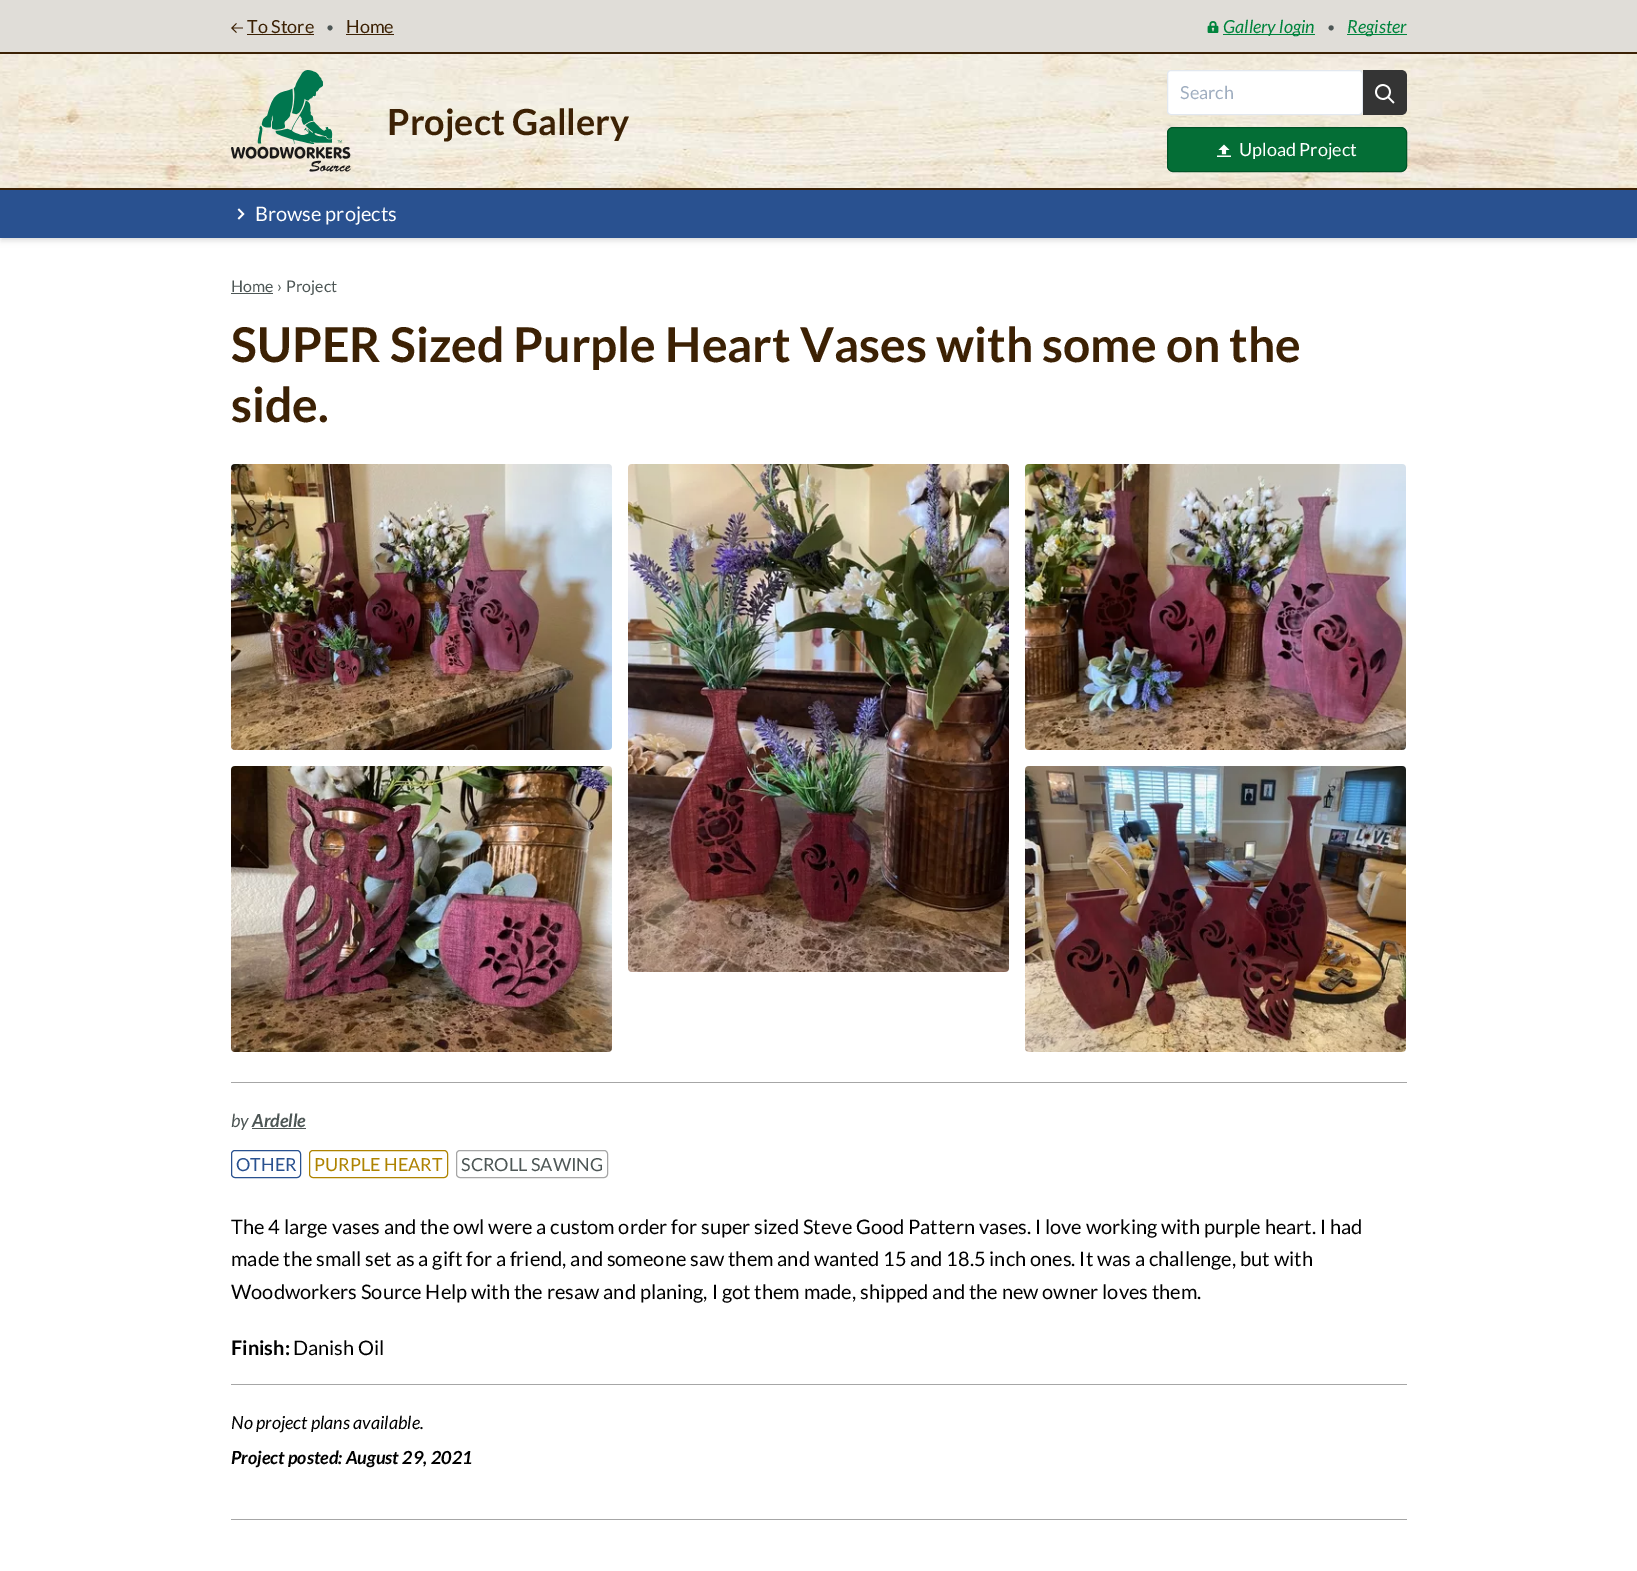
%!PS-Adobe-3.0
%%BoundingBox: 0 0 1637 1571
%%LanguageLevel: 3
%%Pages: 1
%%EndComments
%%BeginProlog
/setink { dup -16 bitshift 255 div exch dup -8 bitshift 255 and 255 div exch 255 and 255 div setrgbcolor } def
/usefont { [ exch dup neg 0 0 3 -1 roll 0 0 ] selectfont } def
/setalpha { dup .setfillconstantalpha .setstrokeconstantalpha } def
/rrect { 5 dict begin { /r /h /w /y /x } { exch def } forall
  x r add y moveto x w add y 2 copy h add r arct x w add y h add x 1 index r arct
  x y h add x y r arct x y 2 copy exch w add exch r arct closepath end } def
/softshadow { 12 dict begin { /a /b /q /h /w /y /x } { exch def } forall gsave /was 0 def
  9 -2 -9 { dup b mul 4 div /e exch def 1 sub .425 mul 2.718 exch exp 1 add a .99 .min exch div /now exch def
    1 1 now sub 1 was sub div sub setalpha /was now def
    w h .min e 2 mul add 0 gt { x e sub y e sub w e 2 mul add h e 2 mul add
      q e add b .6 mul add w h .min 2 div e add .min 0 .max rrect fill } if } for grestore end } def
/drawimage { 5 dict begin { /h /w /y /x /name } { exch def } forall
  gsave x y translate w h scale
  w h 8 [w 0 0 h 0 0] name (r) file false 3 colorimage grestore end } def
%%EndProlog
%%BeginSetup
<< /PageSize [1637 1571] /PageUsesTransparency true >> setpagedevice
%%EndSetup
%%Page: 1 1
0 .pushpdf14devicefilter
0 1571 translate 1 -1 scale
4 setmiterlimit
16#FFFFFF setink
0 0 1637 1571 rectfill
16#E0DDD8 setink
0 0 1637 52 rectfill
16#3C2104 setink
0 52 1637 2 rectfill
(img1.raw) 231 23 12 10 drawimage
/Lato-Regular 18 usefont
247 33 moveto (To Store) show
247 34 67 1 rectfill
/Lato-Regular 14 usefont
16#4D5655 setink
326 32 moveto (•) show
/Lato-Regular 18 usefont
16#3C2104 setink
346 33 moveto (Home) show
346 34 48 1 rectfill
(img2.raw) 1207 21 12 12 drawimage
16#00843D setink
1223 34 92 1 rectfill
/Lato-Italic 18 usefont
1223 33 moveto (Gallery login) show
/Lato-Italic 14 usefont
16#4D5655 setink
1327 32 moveto (•) show
16#00843D setink
1347 34 60 1 rectfill
/Lato-Italic 18 usefont
1347 33 moveto (Register) show
(img3.raw) 0 54 1637 134 drawimage
16#3C2104 setink
0 188 1637 2 rectfill
(img4.raw) 231 70 120 102 drawimage
/Lato-Bold 36 usefont
387 135 moveto (Project Gallery) show
16#FFFFFF setink
1167.5 70.5 195 44 3.5 rrect gsave fill grestore
16#E2E8F0 setink
stroke
/Lato-Regular 18 usefont
16#A0AEC0 setink
1180 99 moveto (Search) show
16#343434 setink
1363 70 moveto 1401 70 lineto 1404.5 70 1407 72.5 1407 76 curveto 1407 109 lineto 1407 112.5 1404.5 115 1401 115 curveto 1363 115 lineto closepath fill
(img5.raw) 1375 84 20 20 drawimage
16#046E36 setink
1167.5 127.5 239 44 5.5 rrect gsave fill grestore
16#015428 setink
stroke
(img6.raw) 1217 144 14 13 drawimage
16#FFFFFF setink
1239 156 moveto (Upload Project) show
16#000000 setink
1 193 1635 46 0 2 0.06 softshadow
1 195 1635 46 0 3 0.1 softshadow
16#295190 setink
0 190 1637 48 rectfill
(img7.raw) 237 208 8 12 drawimage
/Lato-Regular 20 usefont
16#FFFFFF setink
255 221 moveto (Browse projects) show
/Lato-Regular 16 usefont
16#4D5655 setink
231 292 moveto (Home) show
231 293 42 1 rectfill
277 292 moveto (›) show
286 292 moveto (Project) show
/Lato-Bold 48 usefont
16#3C2104 setink
231 362 moveto (SUPER Sized Purple Heart Vases with some on the) show
231 422 moveto (side.) show
(img8.raw) 231 464 381 286 drawimage
(img9.raw) 628 464 381 508 drawimage
(img10.raw) 1025 464 381 286 drawimage
(img11.raw) 231 766 381 286 drawimage
(img12.raw) 1025 766 381 286 drawimage
16#A6A6A6 setink
231 1082 1176 1 rectfill
/Lato-Italic 18 usefont
16#4D5655 setink
231 1127 moveto (by) show
/Lato-BoldItalic 18 usefont
252 1127 moveto (Ardelle) show
252 1128 54 1 rectfill
16#295190 setink
231.5 1150.5 69 27 3.5 rrect stroke
/Lato-Regular 18 usefont
236 1171 moveto (OTHER) show
16#AE8300 setink
309.5 1150.5 138 27 3.5 rrect stroke
314 1171 moveto (PURPLE HEART) show
16#A6A6A6 setink
456.5 1150.5 151 27 3.5 rrect stroke
16#4D5655 setink
461 1171 moveto (SCROLL SAWING) show
16#A6A6A6 setink
231 1384 1176 1 rectfill
/Lato-Regular 20 usefont
16#000000 setink
[
    [(The 4 large vases and the owl were a custom order for super sized Steve Good Pattern vases. I love working with purple heart. I had) 231 1234]
    [(made the small set as a gift for a friend, and someone saw them and wanted 15 and 18.5 inch ones. It was a challenge, but with) 231 1266]
    [(Woodworkers Source Help with the resaw and planing, I got them made, shipped and the new owner loves them.) 231 1299]
] { aload pop moveto show } forall
/Lato-Bold 20 usefont
231 1355 moveto (Finish:) show
/Lato-Regular 20 usefont
293 1355 moveto (Danish Oil) show
/Lato-Italic 18 usefont
231 1429 moveto (No project plans available.) show
/Lato-BoldItalic 18 usefont
231 1464 moveto (Project posted: August 29, 2021) show
16#A6A6A6 setink
231 1519 1176 1 rectfill
.poppdf14devicefilter showpage
%%EOF
